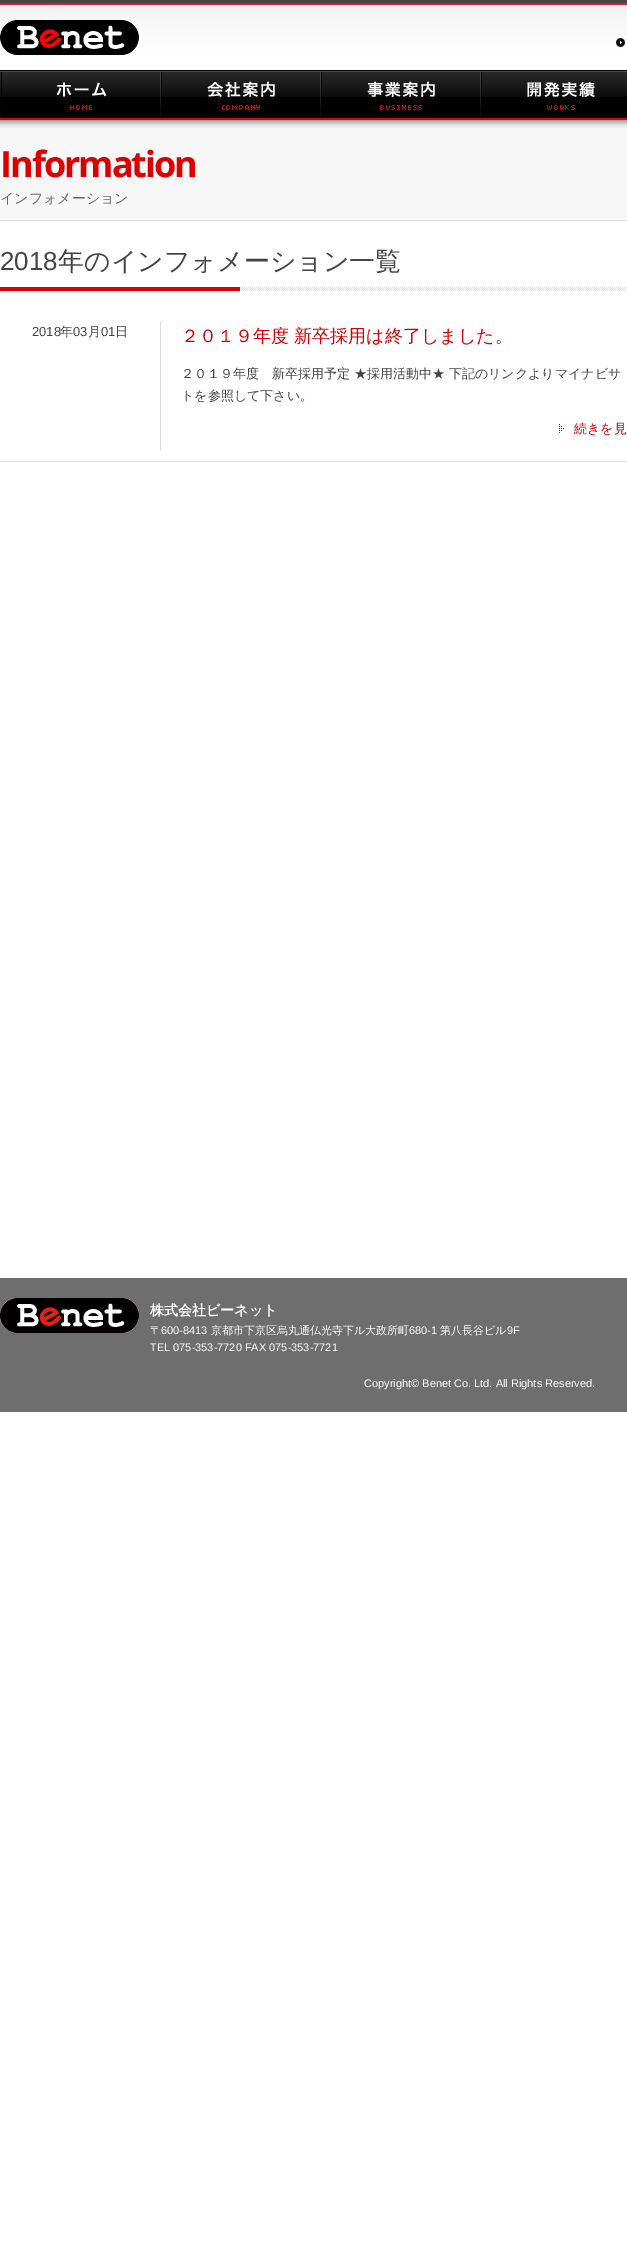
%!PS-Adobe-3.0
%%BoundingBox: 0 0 627 2257
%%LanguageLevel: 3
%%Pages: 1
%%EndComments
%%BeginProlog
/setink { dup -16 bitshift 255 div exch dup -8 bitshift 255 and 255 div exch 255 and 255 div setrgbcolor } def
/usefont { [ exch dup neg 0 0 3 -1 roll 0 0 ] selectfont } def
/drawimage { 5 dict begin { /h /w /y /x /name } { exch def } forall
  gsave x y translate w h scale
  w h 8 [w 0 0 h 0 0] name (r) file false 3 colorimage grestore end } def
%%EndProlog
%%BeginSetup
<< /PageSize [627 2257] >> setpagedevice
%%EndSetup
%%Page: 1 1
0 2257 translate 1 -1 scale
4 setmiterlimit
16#FFFFFF setink
0 0 627 2257 rectfill
16#F7F7F7 setink
0 120 627 100 rectfill
(img1.raw) 0 0 627 128 drawimage
(img2.raw) 0 20 139 35 drawimage
(img3.raw) 616 38 9 9 drawimage
(img4.raw) 1 72 160 46 drawimage
(img5.raw) 161 72 160 46 drawimage
(img6.raw) 321 72 160 46 drawimage
(img7.raw) 481 72 114 46 drawimage
16#DDDDDD setink
0 220 627 1 rectfill
/OpenSans-Bold 36 usefont
16#DC0000 setink
0 177 moveto -2 0 (Information) ashow
/WenQuanYiZenHei-Medium 14 usefont
16#666666 setink
0 203 moveto (インフォメーション) show
(img8.raw) 0 287 627 4 drawimage
/LiberationSans-Regular 26 usefont
16#444444 setink
0 270 moveto (2018) show
/WenQuanYiZenHei-Medium 26 usefont
58 270 moveto (年のインフォメーション一覧) show
16#DDDDDD setink
0 461 627 1 rectfill
/LiberationSans-Regular 13 usefont
16#444444 setink
32 336 moveto (2018) show
/WenQuanYiZenHei-Medium 13 usefont
60 336 moveto (年) show
/LiberationSans-Regular 13 usefont
73 336 moveto (03) show
/WenQuanYiZenHei-Medium 13 usefont
88 336 moveto (月) show
/LiberationSans-Regular 13 usefont
101 336 moveto (01) show
/WenQuanYiZenHei-Medium 13 usefont
115 336 moveto (日) show
16#DDDDDD setink
160 321 1 130 rectfill
/WenQuanYiZenHei-Medium 18 usefont
16#D20000 setink
181 342 moveto (２０１９年度 新卒採用は終了しました。) show
/WenQuanYiZenHei-Medium 13 usefont
16#444444 setink
181 378 moveto (２０１９年度　新卒採用予定 ★採用活動中★ 下記のリンクよりマイナビサ) show
181 400 moveto (トを参照して下さい。) show
(img9.raw) 559 424 5 9 drawimage
16#D20000 setink
574 433 moveto (続きを見) show
16#6E6E6E setink
0 1278 627 134 rectfill
(img10.raw) 0 1298 139 35 drawimage
/WenQuanYiZenHei-Bold 14 usefont
16#FFFFFF setink
150 1315 moveto (株式会社ビーネット) show
/WenQuanYiZenHei-Medium 11 usefont
150 1334 moveto (〒) show
/LiberationSans-Regular 11 usefont
161 1334 moveto (600-8413) show
/WenQuanYiZenHei-Medium 11 usefont
211 1334 moveto (京都市下京区烏丸通仏光寺下ル大政所町) show
/LiberationSans-Regular 11 usefont
409 1334 moveto (680-1) show
/WenQuanYiZenHei-Medium 11 usefont
440 1334 moveto (第八長谷ビル) show
/LiberationSans-Regular 11 usefont
[
    [(9F) 507 1334]
    [(TEL 075-353-7720 FAX 075-353-7721) 150 1351]
    [(Copyright© Benet Co. Ltd. All Rights Reserved.) 364 1387]
] { aload pop moveto show } forall
showpage
%%EOF
